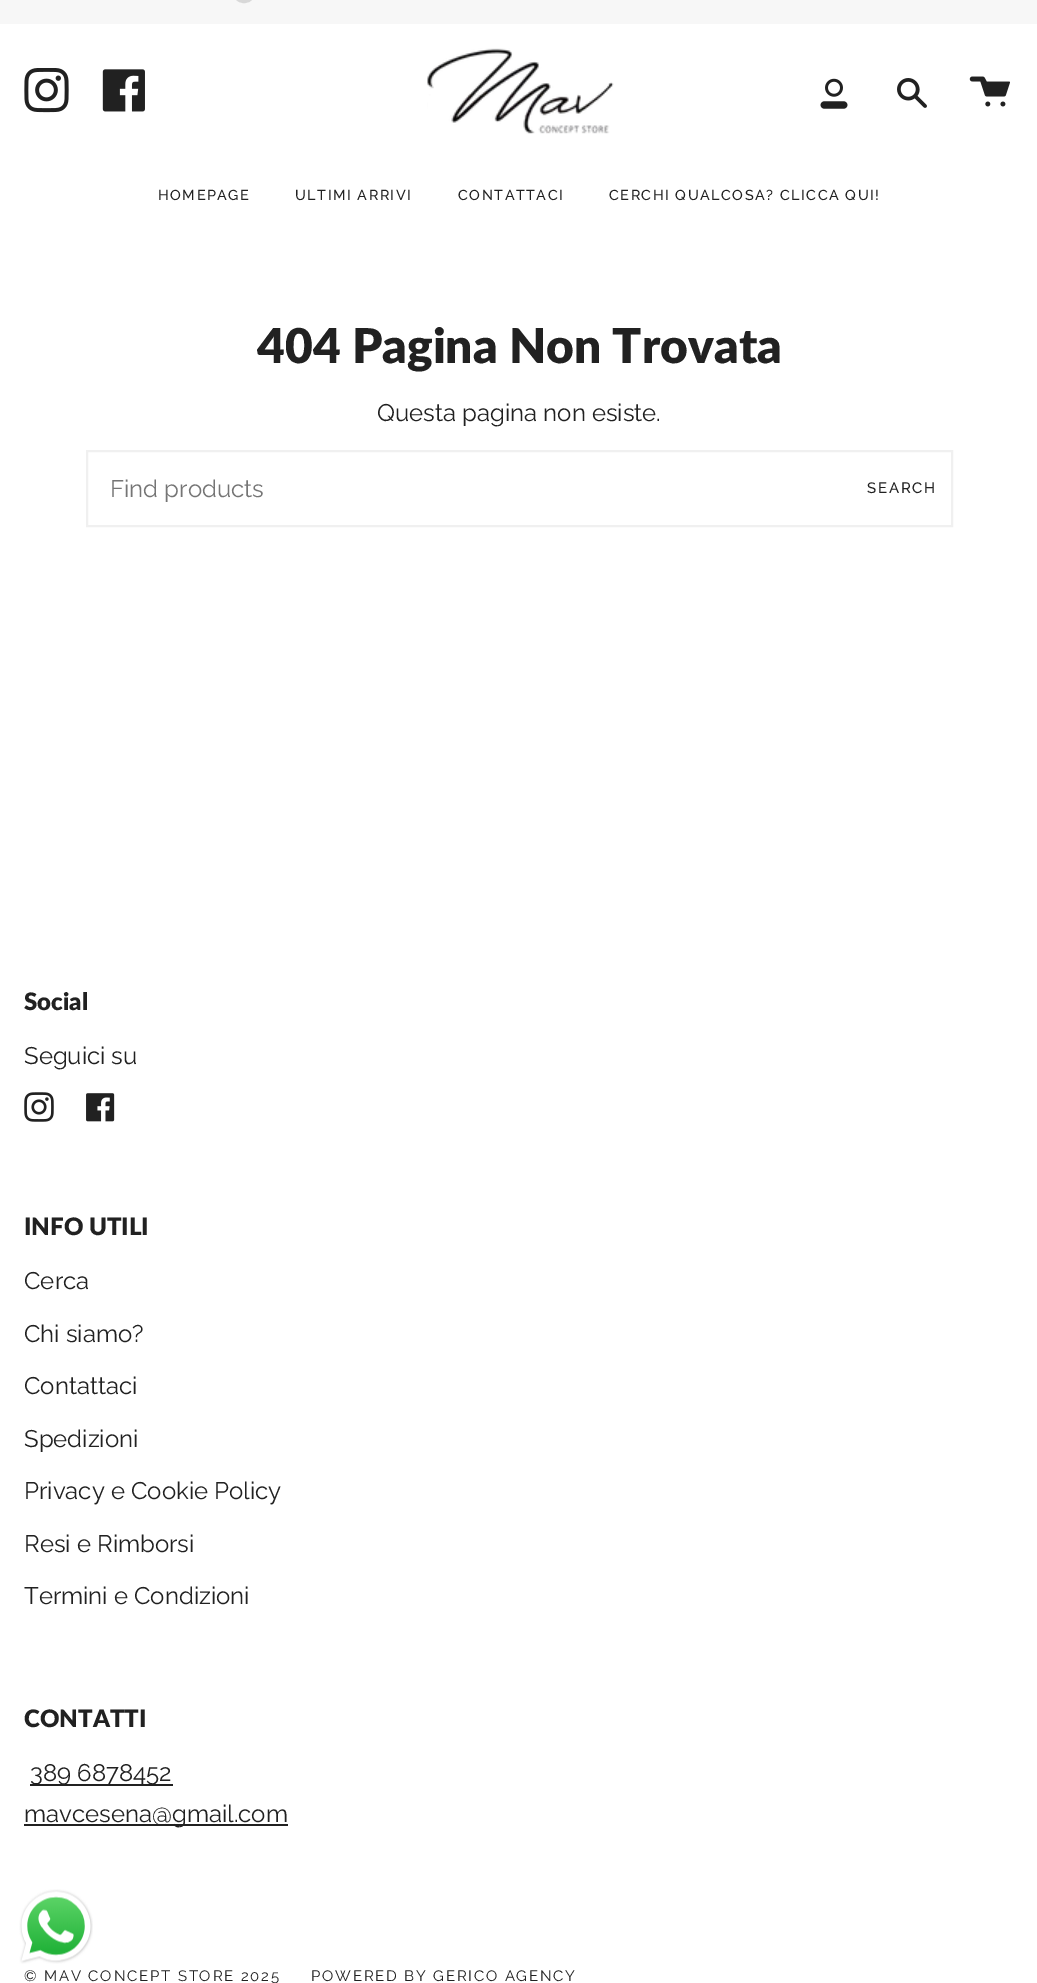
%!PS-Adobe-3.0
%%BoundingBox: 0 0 1037 1983
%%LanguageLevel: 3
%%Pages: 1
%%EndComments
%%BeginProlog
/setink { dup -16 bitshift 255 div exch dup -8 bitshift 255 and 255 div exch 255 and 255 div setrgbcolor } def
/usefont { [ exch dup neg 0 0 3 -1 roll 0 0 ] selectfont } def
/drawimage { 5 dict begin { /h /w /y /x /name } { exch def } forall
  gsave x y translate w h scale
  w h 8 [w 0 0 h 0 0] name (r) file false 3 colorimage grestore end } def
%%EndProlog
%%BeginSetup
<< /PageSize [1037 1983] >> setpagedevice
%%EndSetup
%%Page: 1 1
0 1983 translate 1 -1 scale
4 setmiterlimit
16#FFFFFF setink
0 0 1037 1983 rectfill
16#F7F7F7 setink
0 0 1037 24 rectfill
16#D8D8D8 setink
3 setlinewidth
244 -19.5 moveto 230.5 -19.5 230.5 1.5 244 1.5 curveto 258 1.5 258 -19.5 244 -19.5 curveto closepath stroke
(img1.raw) 24 68 45 45 drawimage
(img2.raw) 102 69 43 43 drawimage
(img3.raw) 427 48 187 86 drawimage
(img4.raw) 820 78 28 31 drawimage
(img5.raw) 897 78 30 30 drawimage
(img6.raw) 969 76 41 31 drawimage
/Raleway-Medium 14.4 usefont
16#212121 setink
158 200 moveto 1.5 0 (HOMEPAGE) ashow
295 200 moveto 1.5 0 (ULTIMI ARRIVI) ashow
458 200 moveto 1.5 0 (CONTATTACI) ashow
609 200 moveto 1.5 0 (CERCHI QUALCOSA? CLICCA QUI!) ashow
/Lato-ExtraBold 48 usefont
257 363 moveto (404 Pagina Non Trovata) show
/Raleway-Regular 24 usefont
377 421 moveto (Questa pagina non esiste.) show
16#F0F0F0 setink
2 setlinewidth
87 451 865 75 rectstroke
16#757575 setink
110 497 moveto (Find products) show
/Raleway-Medium 15 usefont
16#212121 setink
867 493 moveto 1.8 0 (SEARCH) ashow
/Lato-ExtraBold 24 usefont
24 1010 moveto (Social) show
/Raleway-Regular 24 usefont
24 1064 moveto (Seguici su) show
(img7.raw) 24 1092 30 30 drawimage
(img8.raw) 86 1093 29 29 drawimage
/Lato-ExtraBold 24 usefont
24 1235 moveto (INFO UTILI) show
/Raleway-Regular 24 usefont
[
    [(Cerca) 24 1289]
    [(Chi siamo?) 24 1342]
    [(Contattaci) 24 1394]
    [(Spedizioni) 24 1447]
    [(Privacy e Cookie Policy) 24 1499]
    [(Resi e Rimborsi) 24 1552]
    [(Termini e Condizioni) 24 1604]
] { aload pop moveto show } forall
/Lato-ExtraBold 24 usefont
24 1727 moveto (CONTATTI) show
30 1784 143 2 rectfill
/Raleway-Regular 24 usefont
30 1781 moveto (389 6878452) show
24 1824 264 2 rectfill
24 1822 moveto (mavcesena@gmail.com) show
/Raleway-Regular 15 usefont
24 1981 moveto 1.8 0 (© MAV CONCEPT STORE 2025) ashow
311 1981 moveto 1.8 0 (POWERED BY GERICO AGENCY) ashow
(img9.raw) 19 1889 74 75 drawimage
showpage
%%EOF
